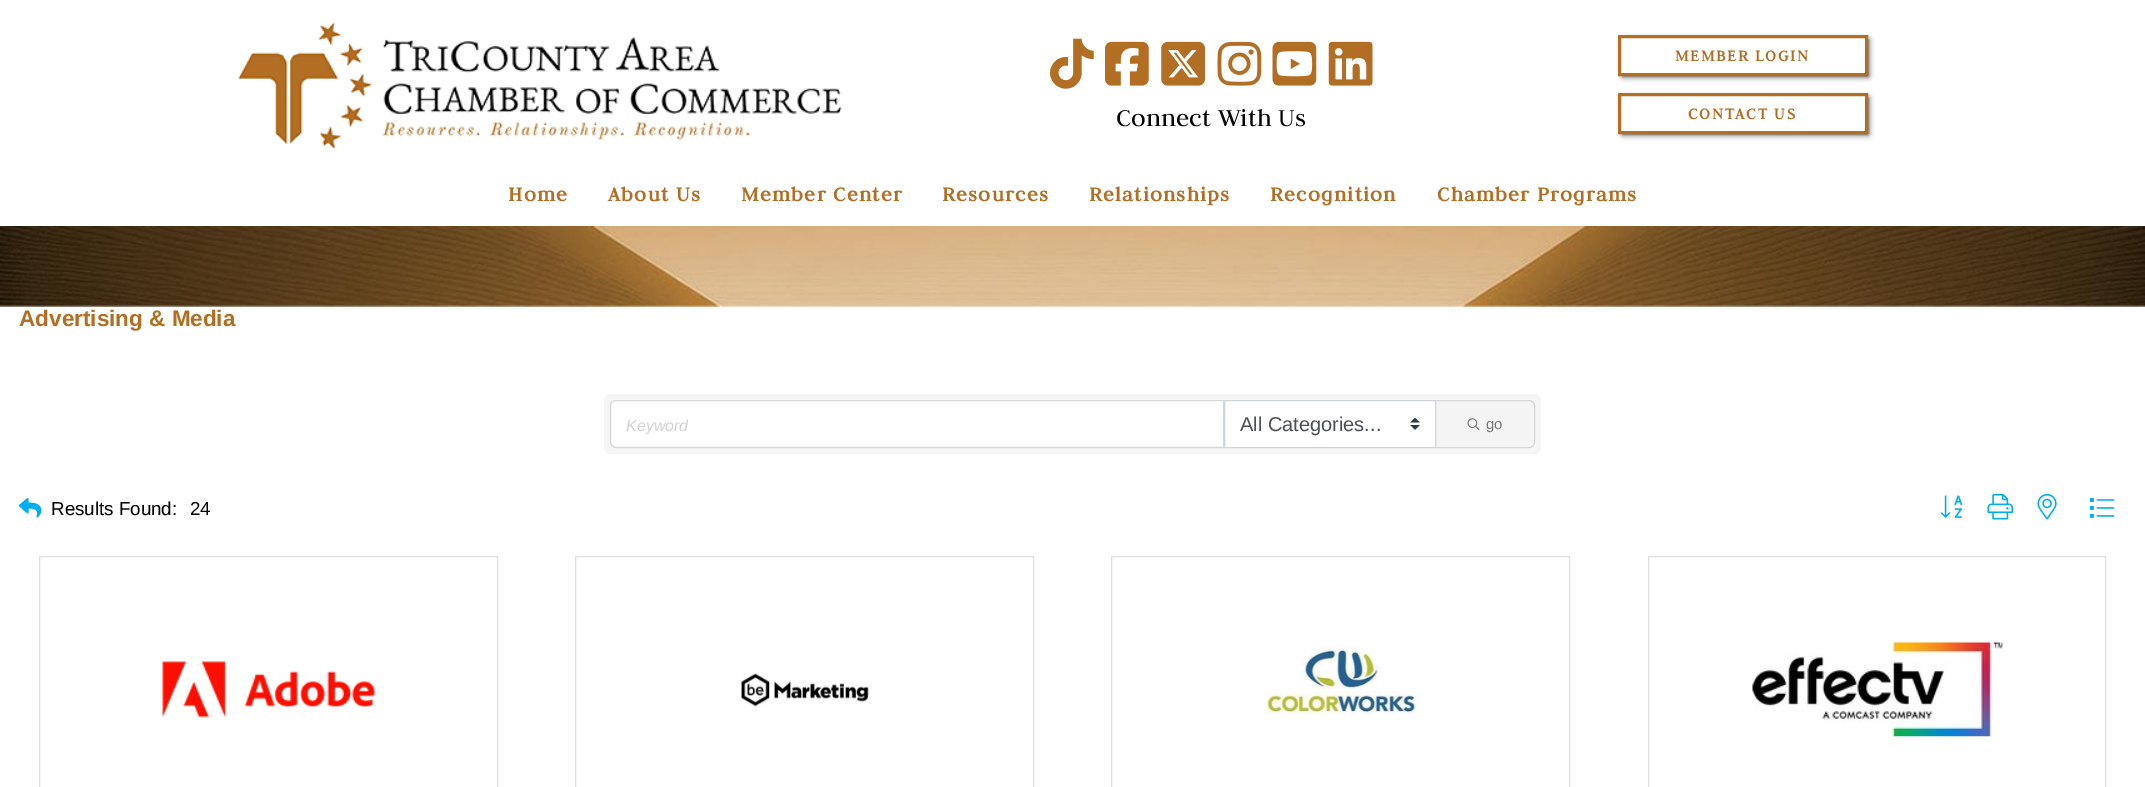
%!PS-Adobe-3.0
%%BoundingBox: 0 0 2145 787
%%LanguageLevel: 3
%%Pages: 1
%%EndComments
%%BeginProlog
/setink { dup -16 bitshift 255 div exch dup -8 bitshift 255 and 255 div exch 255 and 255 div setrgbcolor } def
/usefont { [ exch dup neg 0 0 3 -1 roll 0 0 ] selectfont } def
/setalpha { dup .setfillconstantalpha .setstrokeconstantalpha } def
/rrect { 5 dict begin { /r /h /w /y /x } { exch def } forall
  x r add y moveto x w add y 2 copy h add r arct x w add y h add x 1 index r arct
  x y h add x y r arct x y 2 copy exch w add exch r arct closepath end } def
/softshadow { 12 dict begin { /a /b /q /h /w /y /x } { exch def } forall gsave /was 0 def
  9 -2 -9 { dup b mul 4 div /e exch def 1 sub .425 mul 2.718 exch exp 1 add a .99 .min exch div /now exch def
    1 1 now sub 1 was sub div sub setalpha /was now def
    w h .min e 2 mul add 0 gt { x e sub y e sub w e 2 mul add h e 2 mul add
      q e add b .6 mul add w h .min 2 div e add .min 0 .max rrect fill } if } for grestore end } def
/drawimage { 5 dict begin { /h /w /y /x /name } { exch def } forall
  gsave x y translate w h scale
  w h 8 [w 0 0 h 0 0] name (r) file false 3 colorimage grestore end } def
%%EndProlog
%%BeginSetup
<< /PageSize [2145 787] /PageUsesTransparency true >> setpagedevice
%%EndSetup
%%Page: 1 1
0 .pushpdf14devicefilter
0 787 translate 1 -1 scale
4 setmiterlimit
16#FFFFFF setink
0 0 2145 787 rectfill
(img1.raw) 238 22 604 127 drawimage
(img2.raw) 1050 38 44 51 drawimage
(img3.raw) 1105 41 44 45 drawimage
(img4.raw) 1161 41 44 45 drawimage
(img5.raw) 1217 41 45 45 drawimage
(img6.raw) 1272 41 45 45 drawimage
(img7.raw) 1328 41 45 45 drawimage
/Judson-Regular 27 usefont
16#000000 setink
1116 126 moveto (Connect With Us) show
gsave
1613 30 moveto 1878 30 lineto 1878 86 lineto 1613 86 lineto closepath 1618 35 moveto 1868 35 lineto 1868 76 lineto 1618 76 lineto closepath eoclip newpath
1623 40 245 36 0 3 1 softshadow
grestore
16#B26E23 setink
3 setlinewidth
1619.5 36.5 247 38 rectstroke
/Judson-Bold 17 usefont
1675 61 moveto 1.75 0 (MEMBER LOGIN) ashow
gsave
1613 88 moveto 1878 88 lineto 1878 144 lineto 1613 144 lineto closepath 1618 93 moveto 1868 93 lineto 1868 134 lineto 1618 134 lineto closepath eoclip newpath
16#000000 setink
1623 98 245 36 0 3 1 softshadow
grestore
1619.5 94.5 247 38 rectstroke
1688 119 moveto 1.75 0 (CONTACT US) ashow
/Judson-Bold 22 usefont
508 201 moveto 1.25 0 (Home) ashow
608 201 moveto 1.25 0 (About Us) ashow
741 201 moveto 1.25 0 (Member Center) ashow
942 201 moveto 1.25 0 (Resources) ashow
1089 201 moveto 1.25 0 (Relationships) ashow
1270 201 moveto 1.25 0 (Recognition) ashow
1437 201 moveto 1.25 0 (Chamber Programs) ashow
(img8.raw) 0 226 2145 81 drawimage
/LiberationSans-Bold 22.5 usefont
19 326 moveto (Advertising & Media) show
16#F5F5F5 setink
604 394 937 60 6 rrect fill
16#FFFFFF setink
616 401 moveto 1223 401 lineto 1223 446 lineto 616 446 lineto 613 446 611 444 611 441 curveto 611 406 lineto 611 403 613 401 616 401 curveto closepath fill
0.12 setalpha
16#000000 setink
1 setlinewidth
616 400.5 moveto 1223.5 400.5 lineto 1223.5 447.5 lineto 616 447.5 lineto 613 447.5 610.5 445 610.5 442 curveto 610.5 406 lineto 610.5 403 613 400.5 616 400.5 curveto closepath stroke
/LiberationSans-Italic 16 usefont
1 setalpha
16#D2D2D2 setink
626 431 moveto (Keyword) show
16#FFFFFF setink
1225 401 210 46 rectfill
(img9.raw) 1410 418 10 12 drawimage
16#CED4DA setink
1224.5 400.5 211 47 rectstroke
/LiberationSans-Regular 20 usefont
16#495057 setink
1240 431 moveto (All Categories...) show
16#F4F4F4 setink
1435.5 400.5 moveto 1529 400.5 lineto 1532 400.5 1534.5 403 1534.5 406 curveto 1534.5 442 lineto 1534.5 445 1532 447.5 1529 447.5 curveto 1435.5 447.5 lineto closepath gsave fill grestore
16#D6D6D6 setink
stroke
(img10.raw) 1467 418 13 13 drawimage
/LiberationSans-Regular 15 usefont
16#777777 setink
1486 429 moveto (go) show
(img11.raw) 18 498 24 20 drawimage
/LiberationSans-Regular 18.75 usefont
16#000000 setink
51 515 moveto (Results Found:) show
190 515 moveto (24) show
(img12.raw) 1940 495 23 23 drawimage
(img13.raw) 1987 493 26 27 drawimage
(img14.raw) 2037 493 20 27 drawimage
(img15.raw) 2089 498 26 20 drawimage
16#DFDFDF setink
39.5 556.5 458 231 rectstroke
(img16.raw) 161 661 215 57 drawimage
575.5 556.5 458 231 rectstroke
(img17.raw) 741 673 128 34 drawimage
1111.5 556.5 458 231 rectstroke
(img18.raw) 1263 646 155 69 drawimage
1648.5 556.5 457 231 rectstroke
(img19.raw) 1752 642 251 95 drawimage
.poppdf14devicefilter showpage
%%EOF
